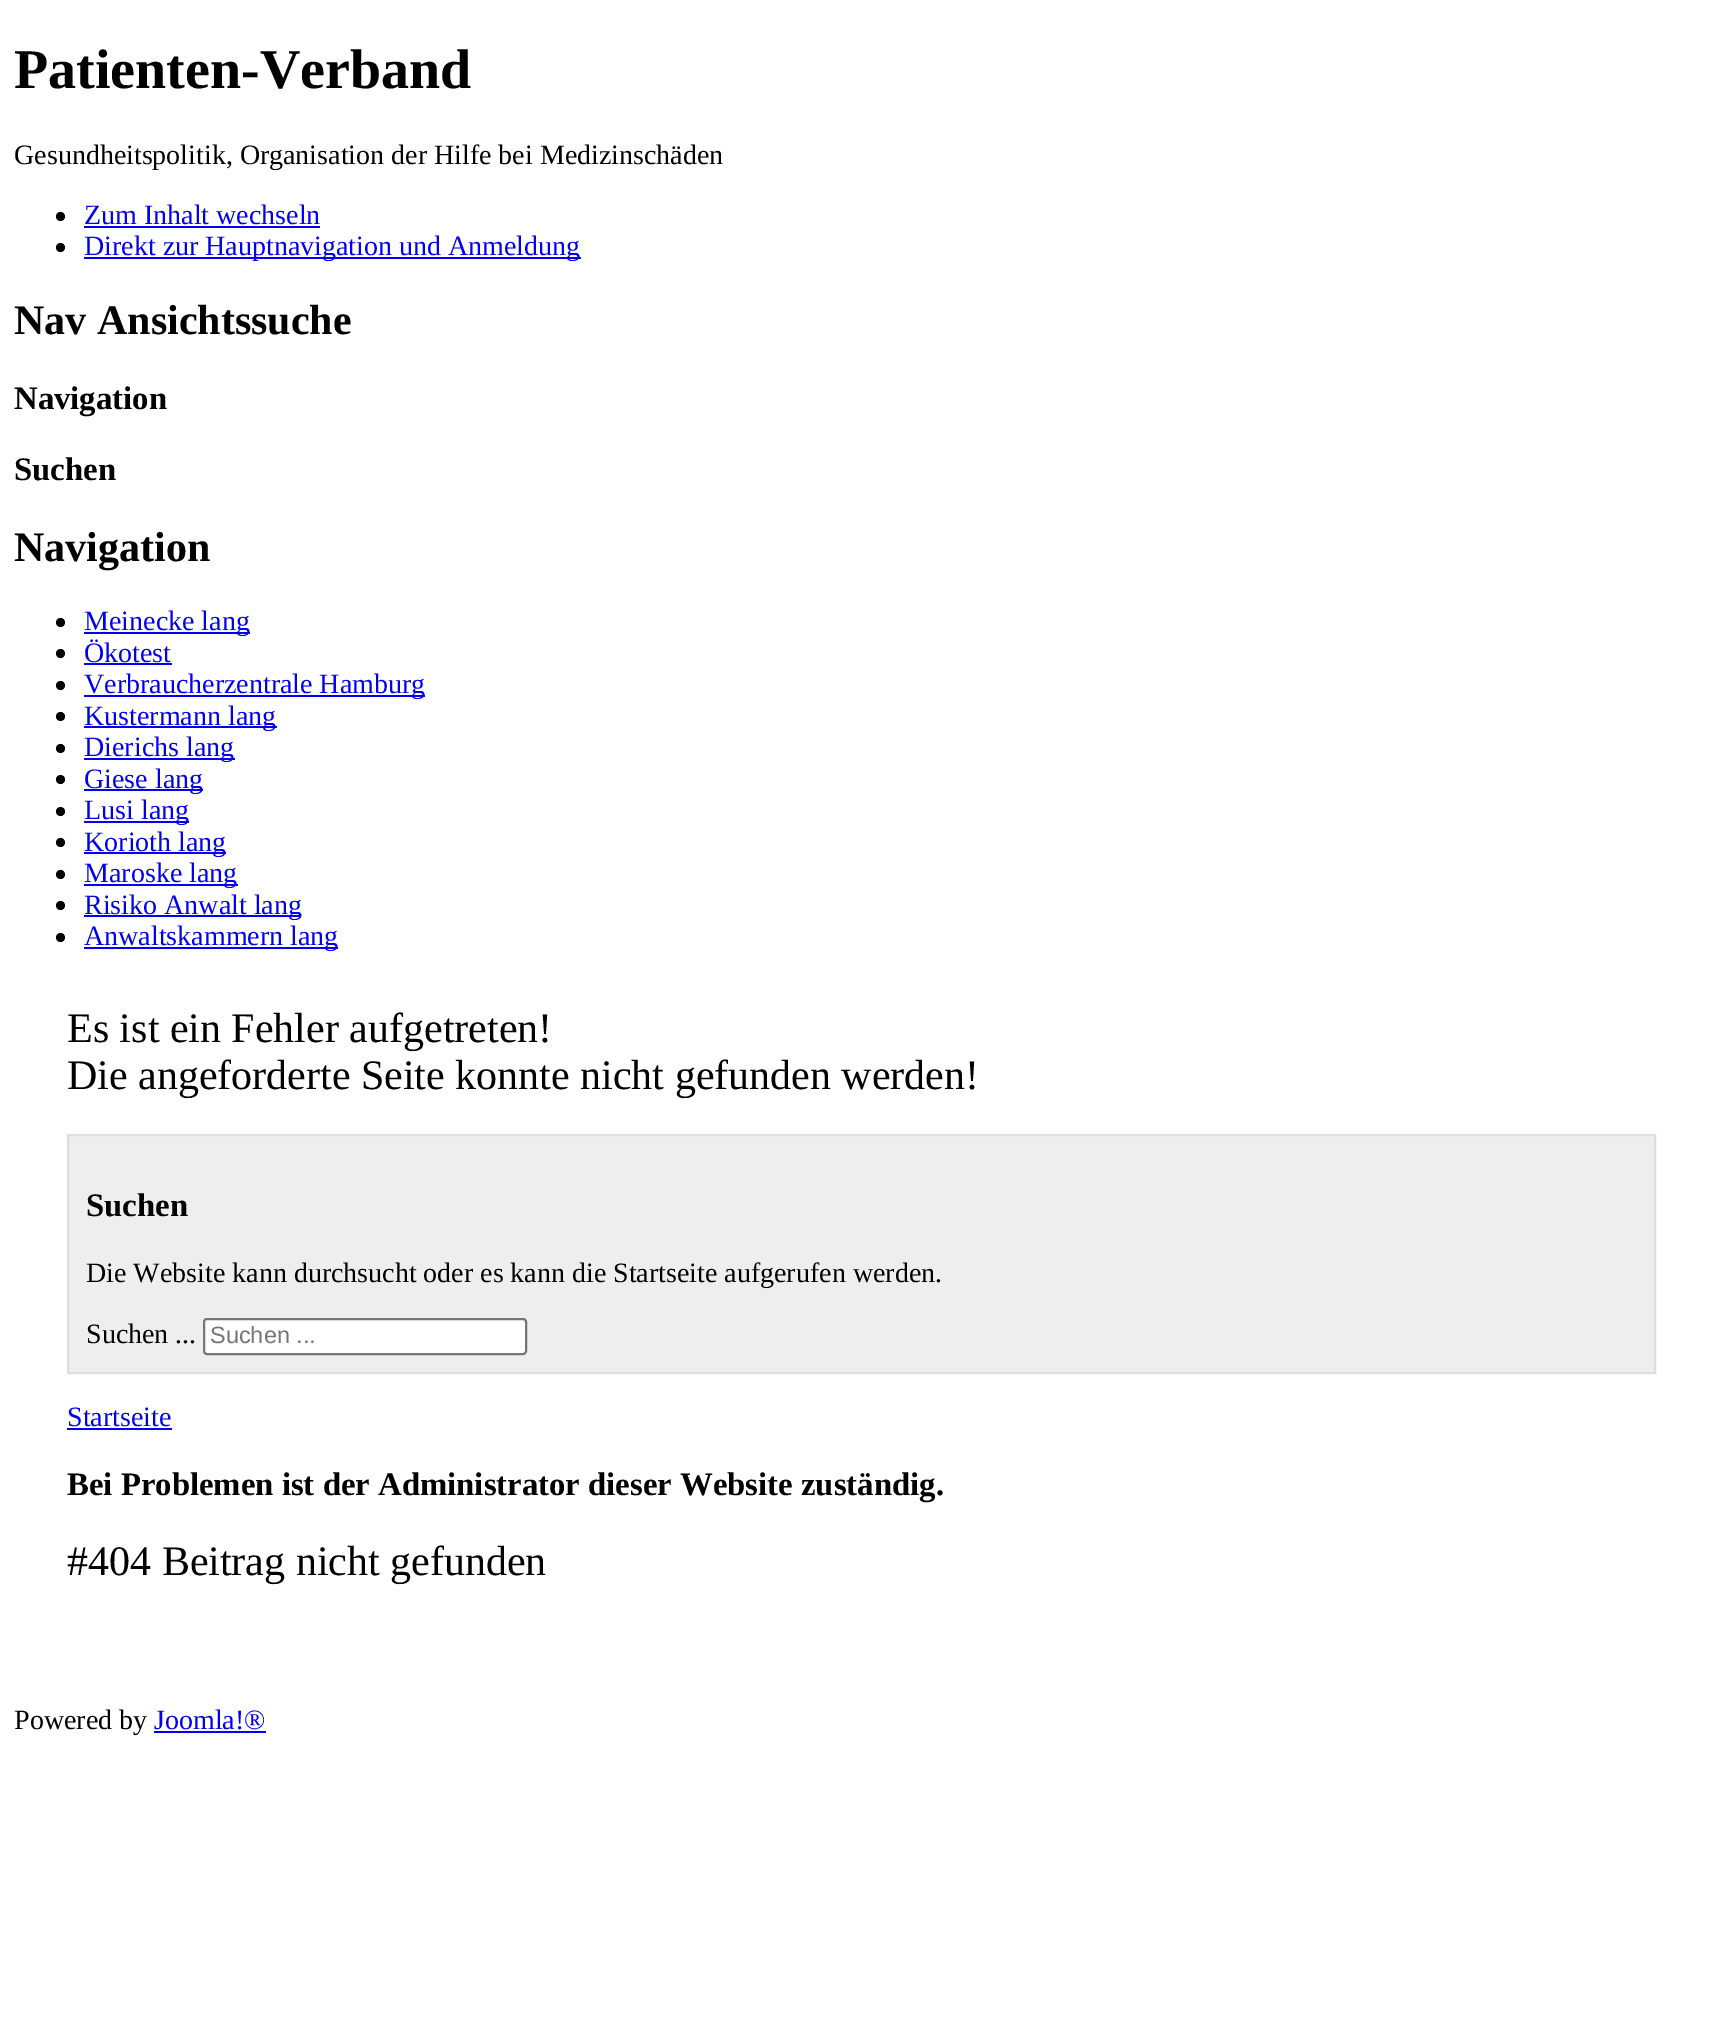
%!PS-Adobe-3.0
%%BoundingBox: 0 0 1721 2032
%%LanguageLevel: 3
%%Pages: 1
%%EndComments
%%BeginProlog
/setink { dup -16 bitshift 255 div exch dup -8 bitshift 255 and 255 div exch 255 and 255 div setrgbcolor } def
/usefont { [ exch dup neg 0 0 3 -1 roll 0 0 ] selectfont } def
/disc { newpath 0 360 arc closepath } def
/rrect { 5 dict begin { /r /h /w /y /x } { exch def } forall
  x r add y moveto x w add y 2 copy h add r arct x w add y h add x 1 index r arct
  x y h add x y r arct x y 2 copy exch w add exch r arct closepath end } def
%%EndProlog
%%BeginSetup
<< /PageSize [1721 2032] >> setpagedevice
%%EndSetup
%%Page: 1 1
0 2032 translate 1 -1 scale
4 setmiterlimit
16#FFFFFF setink
0 0 1721 2032 rectfill
/LiberationSerif-Bold 56 usefont
16#000000 setink
14 88 moveto (Patienten-Verband) show
/LiberationSerif-Regular 28 usefont
14 164 moveto (Gesundheitspolitik, Organisation der Hilfe bei Medizinschäden) show
60.5 216.5 4.5 disc fill
16#0000EE setink
84 224 moveto (Zum Inhalt wechseln) show
84 226 236 2 rectfill
16#000000 setink
60.5 247.5 4.5 disc fill
16#0000EE setink
84 257 497 2 rectfill
84 255 moveto (Direkt zur Hauptnavigation und Anmeldung) show
/LiberationSerif-Bold 42 usefont
16#000000 setink
14 334 moveto (Nav Ansichtssuche) show
/LiberationSerif-Bold 32.75 usefont
14 409 moveto (Navigation) show
14 480 moveto (Suchen) show
/LiberationSerif-Bold 42 usefont
14 561 moveto (Navigation) show
60.5 622.5 4.5 disc fill
16#0000EE setink
84 632 166 2 rectfill
/LiberationSerif-Regular 28 usefont
84 630 moveto (Meinecke lang) show
16#000000 setink
60.5 653.5 4.5 disc fill
16#0000EE setink
84 662 moveto (Ökotest) show
84 663 88 2 rectfill
16#000000 setink
60.5 685.5 4.5 disc fill
16#0000EE setink
84 695 341 2 rectfill
84 693 moveto (Verbraucherzentrale Hamburg) show
16#000000 setink
60.5 716.5 4.5 disc fill
16#0000EE setink
84 726 193 2 rectfill
84 725 moveto (Kustermann lang) show
16#000000 setink
60.5 748.5 4.5 disc fill
16#0000EE setink
84 758 151 2 rectfill
84 756 moveto (Dierichs lang) show
16#000000 setink
60.5 779.5 4.5 disc fill
16#0000EE setink
84 789 119 2 rectfill
84 788 moveto (Giese lang) show
16#000000 setink
60.5 811.5 4.5 disc fill
16#0000EE setink
84 821 105 2 rectfill
84 819 moveto (Lusi lang) show
16#000000 setink
60.5 842.5 4.5 disc fill
16#0000EE setink
84 852 142 2 rectfill
84 851 moveto (Korioth lang) show
16#000000 setink
60.5 874.5 4.5 disc fill
16#0000EE setink
84 884 154 2 rectfill
84 882 moveto (Maroske lang) show
16#000000 setink
60.5 905.5 4.5 disc fill
16#0000EE setink
84 915 217 2 rectfill
84 914 moveto (Risiko Anwalt lang) show
16#000000 setink
60.5 937.5 4.5 disc fill
16#0000EE setink
84 947 254 2 rectfill
84 945 moveto (Anwaltskammern lang) show
/LiberationSerif-Regular 42 usefont
16#000000 setink
67 1042 moveto (Es ist ein Fehler aufgetreten!) show
67 1089 moveto (Die angeforderte Seite konnte nicht gefunden werden!) show
16#EEEEEE setink
68 1135 moveto 1655 1135 lineto 1655 1373 lineto 68 1373 lineto closepath gsave fill grestore
16#DDDDDD setink
2 setlinewidth
stroke
/LiberationSerif-Bold 32.75 usefont
16#000000 setink
86 1216 moveto (Suchen) show
/LiberationSerif-Regular 28 usefont
86 1282 moveto (Die Website kann durchsucht oder es kann die Startseite aufgerufen werden.) show
86 1343 moveto (Suchen ...) show
16#FFFFFF setink
204 1319 322 35 3 rrect gsave fill grestore
16#767676 setink
stroke
/LiberationSans-Regular 23.5 usefont
16#757575 setink
210 1343 moveto (Suchen ...) show
/LiberationSerif-Regular 28 usefont
16#0000EE setink
67 1426 moveto (Startseite) show
67 1428 105 2 rectfill
/LiberationSerif-Bold 32.75 usefont
16#000000 setink
67 1495 moveto (Bei Problemen ist der Administrator dieser Website zuständig.) show
/LiberationSerif-Regular 42 usefont
67 1575 moveto (#404 Beitrag nicht gefunden) show
/LiberationSerif-Regular 28 usefont
14 1729 moveto (Powered by) show
16#0000EE setink
154 1729 moveto (Joomla!®) show
154 1731 112 2 rectfill
showpage
%%EOF
